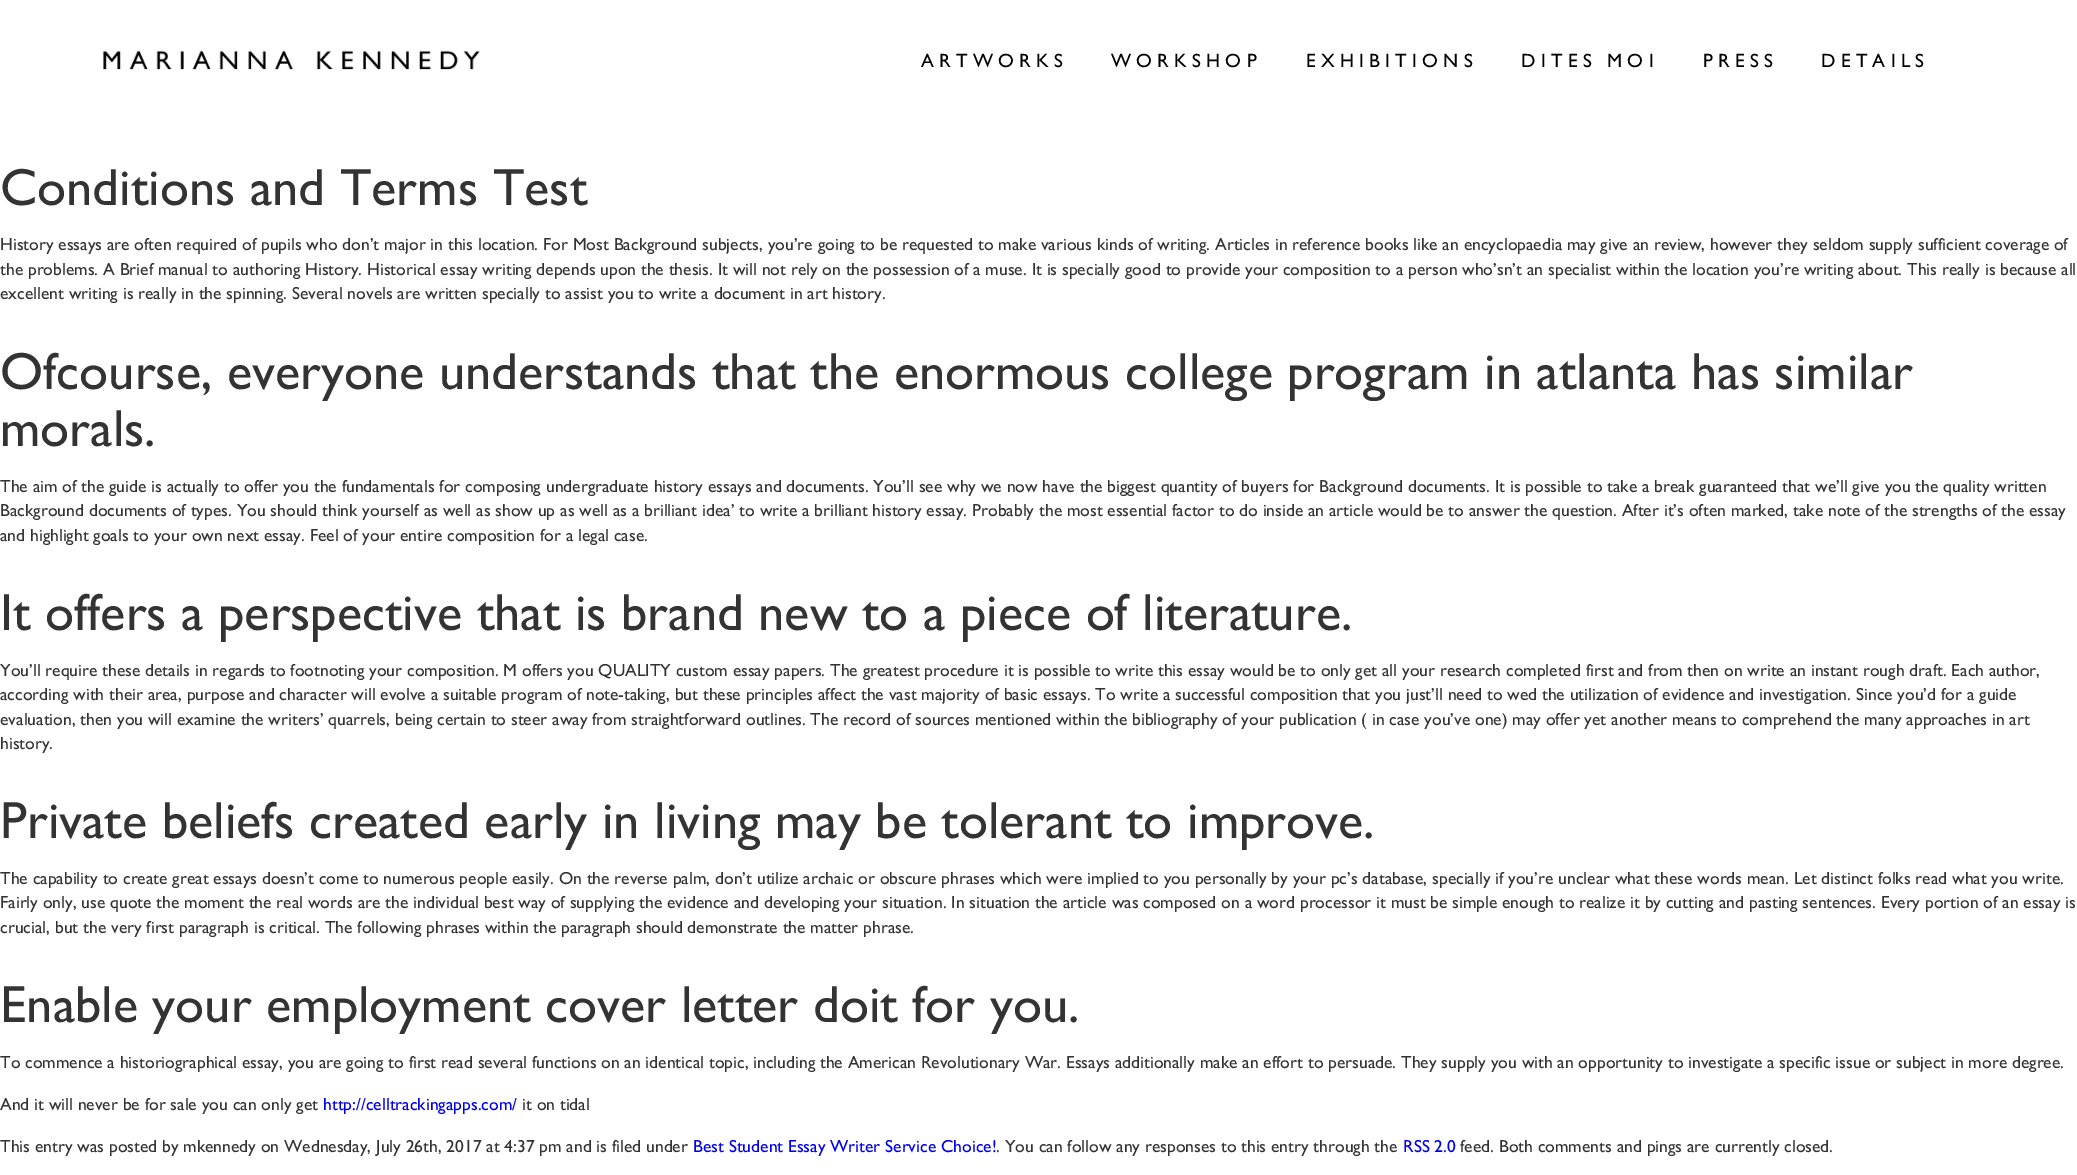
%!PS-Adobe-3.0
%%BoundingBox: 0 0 2077 1175
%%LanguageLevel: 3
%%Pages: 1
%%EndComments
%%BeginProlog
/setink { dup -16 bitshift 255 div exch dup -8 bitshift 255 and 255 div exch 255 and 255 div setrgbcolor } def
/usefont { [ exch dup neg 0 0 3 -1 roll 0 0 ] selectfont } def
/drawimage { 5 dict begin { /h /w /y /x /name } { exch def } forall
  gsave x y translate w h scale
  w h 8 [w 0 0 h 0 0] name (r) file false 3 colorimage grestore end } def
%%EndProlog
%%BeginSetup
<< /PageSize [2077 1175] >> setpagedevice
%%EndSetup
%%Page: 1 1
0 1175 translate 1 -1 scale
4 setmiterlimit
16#FFFFFF setink
0 0 2077 1175 rectfill
(img1.raw) 103 50 377 20 drawimage
/GillSans-Medium 19.25 usefont
16#000000 setink
921 67 moveto 5.25 0 (ARTWORKS) ashow
1111 67 moveto 5.25 0 (WORKSHOP) ashow
1306 67 moveto 5.25 0 (EXHIBITIONS) ashow
1521 67 moveto 5.25 0 (DITES MOI) ashow
1703 67 moveto 5.25 0 (PRESS) ashow
1821 67 moveto 5.25 0 (DETAILS) ashow
/GillSans-Medium 52.5 usefont
16#333333 setink
0 205 moveto (Conditions and Terms Test) show
/GillSans-Medium 17.5 usefont
[
    [(History essays are often required of pupils who don’t major in this location. For Most Background subjects, you’re going to be requested to make various kinds of writing. Articles in reference books like an encyclopaedia may give an review, however they seldom supply sufficient coverage of) 0 250]
    [(the problems. A Brief manual to authoring History. Historical essay writing depends upon the thesis. It will not rely on the possession of a muse. It is specially good to provide your composition to a person who’sn’t an specialist within the location you’re writing about. This really is because all) 0 275]
    [(excellent writing is really in the spinning. Several novels are written specially to assist you to write a document in art history.) 0 299]
] { aload pop moveto show } forall
/GillSans-Medium 52.5 usefont
0 389 moveto (Ofcourse, everyone understands that the enormous college program in atlanta has similar) show
0 446 moveto (morals.) show
/GillSans-Medium 17.5 usefont
[
    [(The aim of the guide is actually to offer you the fundamentals for composing undergraduate history essays and documents. You’ll see why we now have the biggest quantity of buyers for Background documents. It is possible to take a break guaranteed that we’ll give you the quality written) 0 492]
    [(Background documents of types. You should think yourself as well as show up as well as a brilliant idea’ to write a brilliant history essay. Probably the most essential factor to do inside an article would be to answer the question. After it’s often marked, take note of the strengths of the essay) 0 516]
    [(and highlight goals to your own next essay. Feel of your entire composition for a legal case.) 0 541]
] { aload pop moveto show } forall
/GillSans-Medium 52.5 usefont
0 630 moveto (It offers a perspective that is brand new to a piece of literature.) show
/GillSans-Medium 17.5 usefont
[
    [(You’ll require these details in regards to footnoting your composition. M offers you QUALITY custom essay papers. The greatest procedure it is possible to write this essay would be to only get all your research completed first and from then on write an instant rough draft. Each author,) 0 676]
    [(according with their area, purpose and character will evolve a suitable program of note-taking, but these principles affect the vast majority of basic essays. To write a successful composition that you just’ll need to wed the utilization of evidence and investigation. Since you’d for a guide) 0 700]
    [(evaluation, then you will examine the writers’ quarrels, being certain to steer away from straightforward outlines. The record of sources mentioned within the bibliography of your publication \( in case you’ve one\) may offer yet another means to comprehend the many approaches in art) 0 725]
    [(history.) 0 749]
] { aload pop moveto show } forall
/GillSans-Medium 52.5 usefont
0 838 moveto (Private beliefs created early in living may be tolerant to improve.) show
/GillSans-Medium 17.5 usefont
[
    [(The capability to create great essays doesn’t come to numerous people easily. On the reverse palm, don’t utilize archaic or obscure phrases which were implied to you personally by your pc’s database, specially if you’re unclear what these words mean. Let distinct folks read what you write.) 0 884]
    [(Fairly only, use quote the moment the real words are the individual best way of supplying the evidence and developing your situation. In situation the article was composed on a word processor it must be simple enough to realize it by cutting and pasting sentences. Every portion of an essay is) 0 908]
    [(crucial, but the very first paragraph is critical. The following phrases within the paragraph should demonstrate the matter phrase.) 0 933]
] { aload pop moveto show } forall
/GillSans-Medium 52.5 usefont
0 1022 moveto (Enable your employment cover letter doit for you.) show
/GillSans-Medium 17.5 usefont
0 1068 moveto (To commence a historiographical essay, you are going to first read several functions on an identical topic, including the American Revolutionary War. Essays additionally make an effort to persuade. They supply you with an opportunity to investigate a specific issue or subject in more degree.) show
0 1110 moveto (And it will never be for sale you can only get) show
16#0000EE setink
323 1110 moveto (http://celltrackingapps.com/) show
16#333333 setink
522 1110 moveto (it on tidal) show
0 1152 moveto (This entry was posted by mkennedy on Wednesday, July 26th, 2017 at 4:37 pm and is filed under) show
16#0000EE setink
693 1152 moveto (Best Student Essay Writer Service Choice!) show
16#333333 setink
996 1152 moveto (. You can follow any responses to this entry through the) show
16#0000EE setink
1403 1152 moveto (RSS 2.0) show
16#333333 setink
1460 1152 moveto (feed. Both comments and pings are currently closed.) show
showpage
%%EOF
